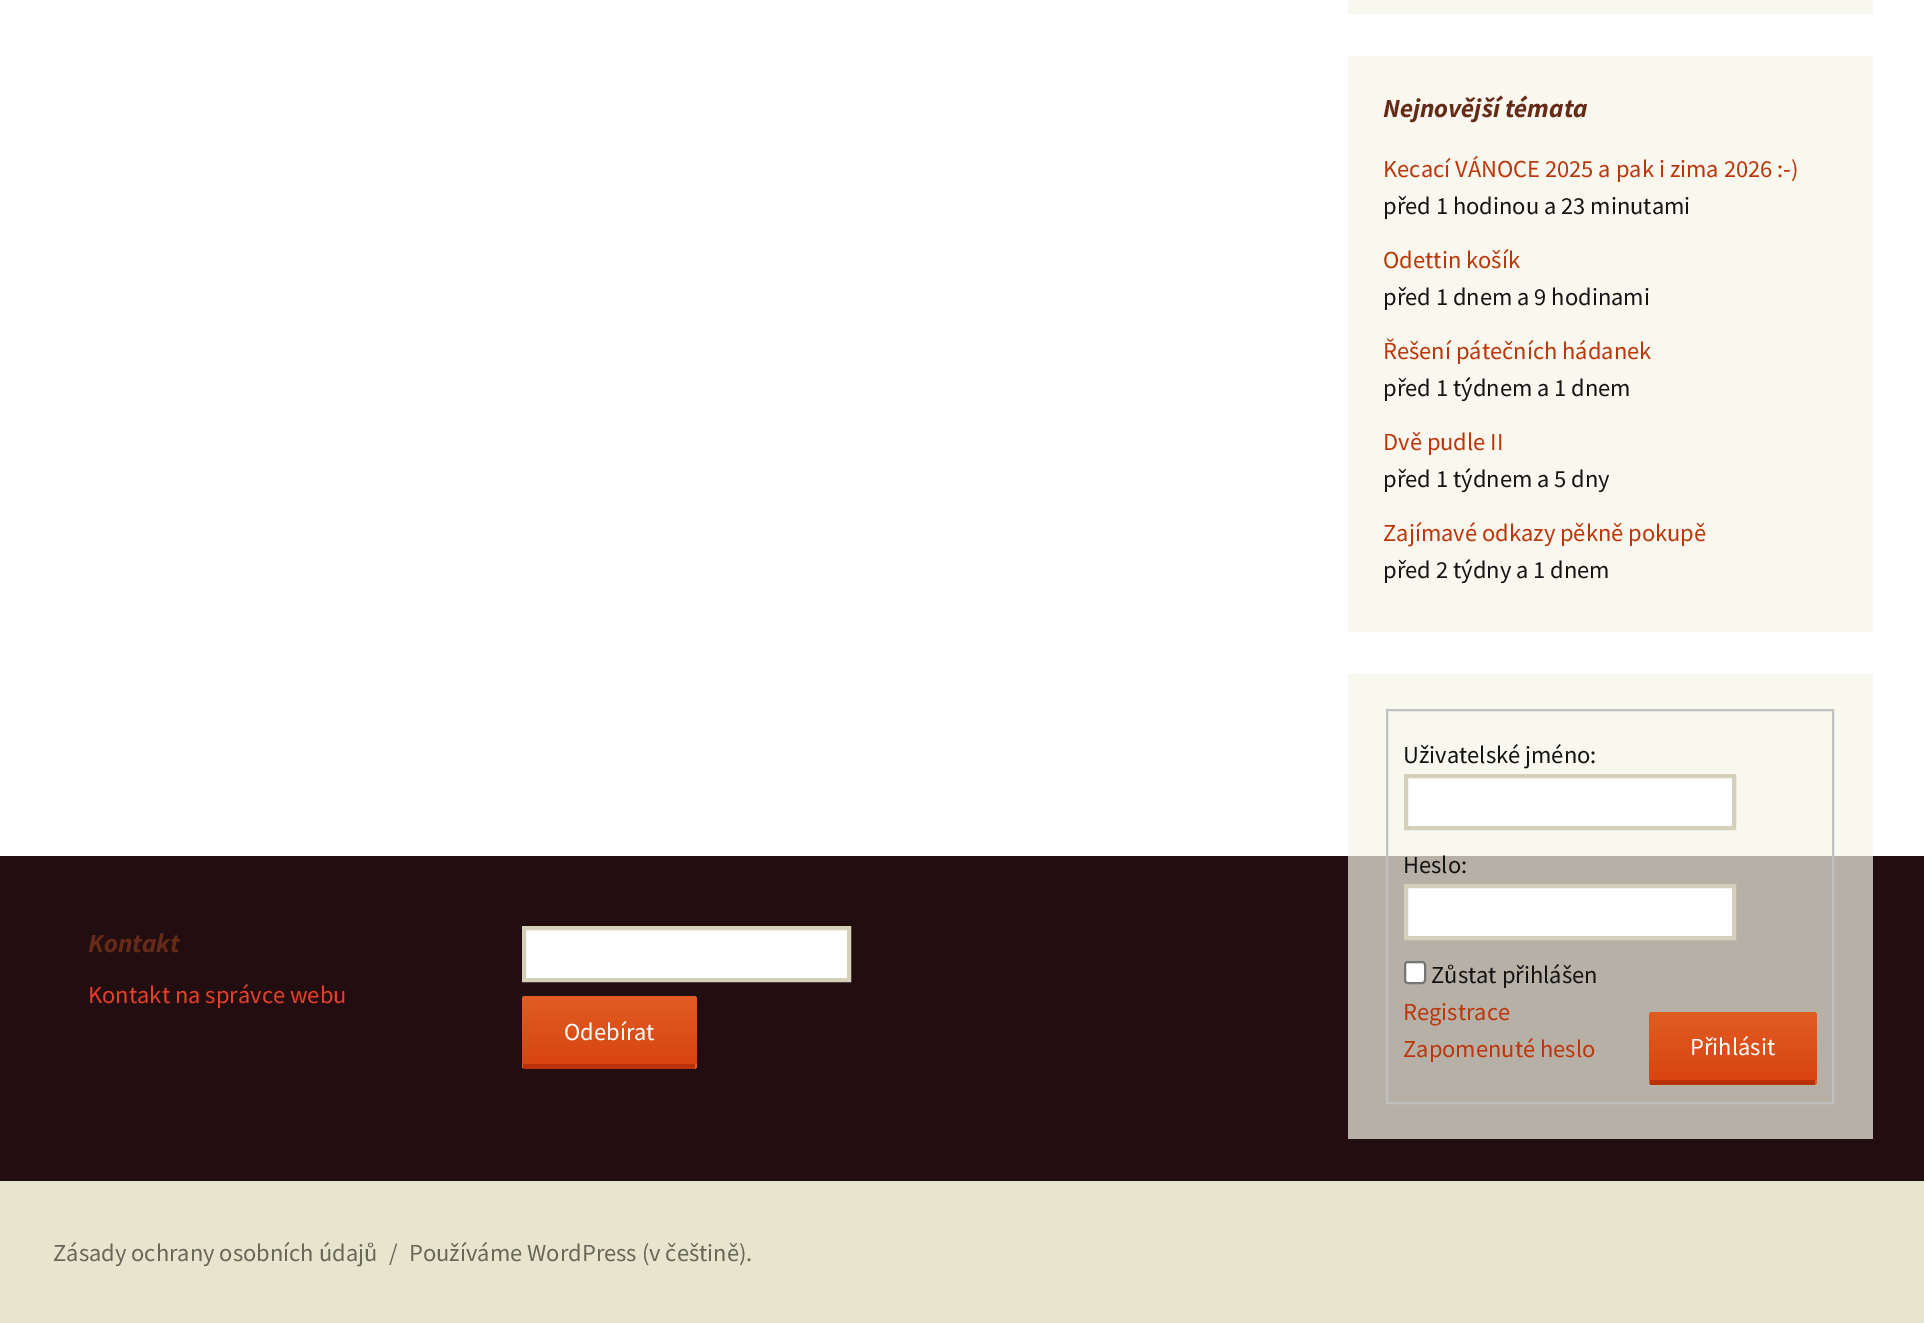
%!PS-Adobe-3.0
%%BoundingBox: 0 0 1924 1323
%%LanguageLevel: 3
%%Pages: 1
%%EndComments
%%BeginProlog
/setink { dup -16 bitshift 255 div exch dup -8 bitshift 255 and 255 div exch 255 and 255 div setrgbcolor } def
/usefont { [ exch dup neg 0 0 3 -1 roll 0 0 ] selectfont } def
/rrect { 5 dict begin { /r /h /w /y /x } { exch def } forall
  x r add y moveto x w add y 2 copy h add r arct x w add y h add x 1 index r arct
  x y h add x y r arct x y 2 copy exch w add exch r arct closepath end } def
%%EndProlog
%%BeginSetup
<< /PageSize [1924 1323] >> setpagedevice
%%EndSetup
%%Page: 1 1
0 1323 translate 1 -1 scale
4 setmiterlimit
16#FFFFFF setink
0 0 1924 1323 rectfill
[
    [1348 674 525 182 16#F9F8EE]
    [1348 0 525 14 16#F9F8EE]
    [1348 56 525 576 16#FAF8EE]
] { aload pop setink rectfill } forall
/SourceSansPro-BoldItalic 26.25 usefont
16#662A18 setink
1383 117 moveto (Nejnovější témata) show
/SourceSansPro-Regular 24.5 usefont
16#BC360A setink
1383 177 moveto (Kecací VÁNOCE 2025 a pak i zima 2026 :-\)) show
16#141412 setink
1383 214 moveto (před 1 hodinou a 23 minutami) show
16#BC360A setink
1383 268 moveto (Odettin košík) show
16#141412 setink
1383 305 moveto (před 1 dnem a 9 hodinami) show
16#BC360A setink
1383 359 moveto (Řešení pátečních hádanek) show
16#141412 setink
1383 396 moveto (před 1 týdnem a 1 dnem) show
16#BC360A setink
1383 450 moveto (Dvě pudle II) show
16#141412 setink
1383 487 moveto (před 1 týdnem a 5 dny) show
16#BC360A setink
1383 541 moveto (Zajímavé odkazy pěkně pokupě) show
16#141412 setink
1383 578 moveto (před 2 týdny a 1 dnem) show
16#220E10 setink
0 856 1924 325 rectfill
16#B7B0A7 setink
1348 856 525 283 rectfill
16#C0C0C0 setink
2 setlinewidth
1387 710 446 393 rectstroke
16#141412 setink
1403 763 moveto (Uživatelské jméno:) show
16#FFFFFF setink
1406 776 moveto 1734 776 lineto 1734 828 lineto 1406 828 lineto closepath gsave fill grestore
16#D4D0BA setink
4 setlinewidth
stroke
16#141412 setink
1403 873 moveto (Heslo:) show
16#FFFFFF setink
1406 886 moveto 1734 886 lineto 1734 938 lineto 1406 938 lineto closepath gsave fill grestore
16#D4D0BA setink
stroke
16#FFFFFF setink
1405 962 20 21 3 rrect gsave fill grestore
16#767676 setink
2 setlinewidth
stroke
16#141412 setink
1431 983 moveto (Zůstat přihlášen) show
16#BC360A setink
1403 1020 moveto (Registrace) show
1403 1057 moveto (Zapomenuté heslo) show
gsave 1653 1012 moveto 1813 1012 lineto 1815 1012 1817 1014 1817 1016 curveto 1817 1080 lineto 1649 1080 lineto 1649 1016 lineto 1649 1014 1651 1012 1653 1012 curveto closepath clip newpath
<< /ShadingType 2 /ColorSpace /DeviceRGB /Coords [1733 1012 1733 1080] /Extend [true true] /Function << /FunctionType 2 /Domain [0 1] /C0 [0.878 0.365 0.133] /C1 [0.851 0.267 0.071] /N 1 >> >> shfill grestore
gsave 1649 1080 moveto 1817 1080 lineto 1817 1081 lineto 1817 1083 1815 1085 1813 1085 curveto 1653 1085 lineto 1651 1085 1649 1083 1649 1081 curveto closepath clip newpath
<< /ShadingType 2 /ColorSpace /DeviceRGB /Coords [1733 1080 1733 1148] /Extend [true true] /Function << /FunctionType 2 /Domain [0 1] /C0 [0.878 0.365 0.133] /C1 [0.851 0.267 0.071] /N 1 >> >> shfill grestore
16#B93207 setink
1650 1080 165 5 rectfill
16#FFFFFF setink
1690 1055 moveto (Přihlásit) show
16#E8E5CE setink
0 1181 1924 142 rectfill
/SourceSansPro-BoldItalic 26.25 usefont
16#662A18 setink
88 952 moveto (Kontakt) show
/SourceSansPro-Regular 24.5 usefont
16#E6402A setink
88 1003 moveto (Kontakt na správce webu) show
16#FFFFFF setink
524 928 moveto 849 928 lineto 849 980 lineto 524 980 lineto closepath gsave fill grestore
16#D4D0BA setink
4 setlinewidth
stroke
gsave 526 996 moveto 693 996 lineto 695 996 697 998 697 1000 curveto 697 1064 lineto 522 1064 lineto 522 1000 lineto 522 998 524 996 526 996 curveto closepath clip newpath
<< /ShadingType 2 /ColorSpace /DeviceRGB /Coords [609 996 609 1064] /Extend [true true] /Function << /FunctionType 2 /Domain [0 1] /C0 [0.878 0.365 0.133] /C1 [0.851 0.267 0.071] /N 1 >> >> shfill grestore
gsave 522 1064 moveto 697 1064 lineto 697 1065 lineto 697 1067 695 1069 693 1069 curveto 526 1069 lineto 524 1069 522 1067 522 1065 curveto closepath clip newpath
<< /ShadingType 2 /ColorSpace /DeviceRGB /Coords [609 1064 609 1132] /Extend [true true] /Function << /FunctionType 2 /Domain [0 1] /C0 [0.878 0.365 0.133] /C1 [0.851 0.267 0.071] /N 1 >> >> shfill grestore
16#B93207 setink
523 1064 172 5 rectfill
16#FFFFFF setink
564 1040 moveto (Odebírat) show
16#686758 setink
[
    [(Zásady ochrany osobních údajů) 53 1261]
    [(/) 389 1261]
    [(Používáme WordPress \(v češtině\).) 409 1261]
] { aload pop moveto show } forall
showpage
%%EOF
